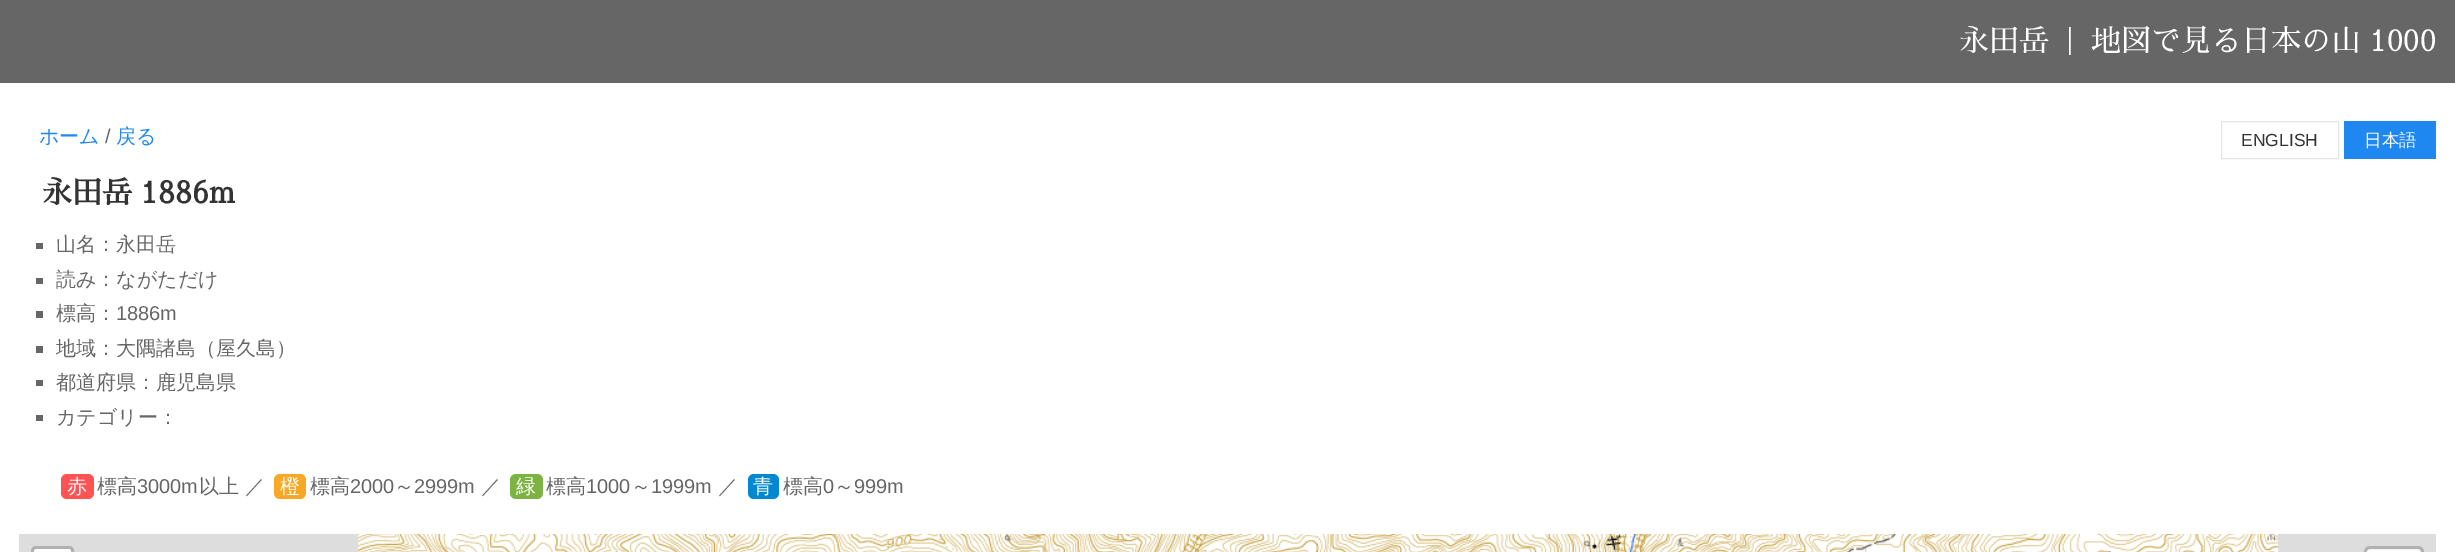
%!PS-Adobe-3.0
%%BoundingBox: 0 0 2455 552
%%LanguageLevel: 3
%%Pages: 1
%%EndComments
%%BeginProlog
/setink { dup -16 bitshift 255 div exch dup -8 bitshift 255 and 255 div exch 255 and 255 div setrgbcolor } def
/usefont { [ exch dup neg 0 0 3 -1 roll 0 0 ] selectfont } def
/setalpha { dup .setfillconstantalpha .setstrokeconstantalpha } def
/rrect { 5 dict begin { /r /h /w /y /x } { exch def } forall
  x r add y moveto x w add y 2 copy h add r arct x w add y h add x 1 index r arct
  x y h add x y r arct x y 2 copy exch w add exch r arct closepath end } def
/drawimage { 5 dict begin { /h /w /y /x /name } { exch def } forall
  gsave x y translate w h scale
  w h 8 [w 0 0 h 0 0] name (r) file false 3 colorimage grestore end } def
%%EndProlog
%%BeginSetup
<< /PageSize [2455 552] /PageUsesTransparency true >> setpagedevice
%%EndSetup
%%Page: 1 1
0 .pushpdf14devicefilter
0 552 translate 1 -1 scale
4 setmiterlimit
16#FFFFFF setink
0 0 2455 552 rectfill
16#666666 setink
0 0 2455 83 rectfill
/SawarabiMincho-Regular 30 usefont
16#FFFFFF setink
1959 51 moveto (永田岳  |) show
2091 51 moveto (地図で見る日本の山 1000) show
/WenQuanYiZenHei-Medium 20 usefont
16#1E87F0 setink
39 143 moveto (ホーム) show
/LiberationSans-Regular 20 usefont
16#666666 setink
105 143 moveto (/) show
/WenQuanYiZenHei-Medium 20 usefont
16#1E87F0 setink
116 143 moveto (戻る) show
16#E5E5E5 setink
2221.5 121.5 117 37 rectstroke
/LiberationSans-Regular 17.5 usefont
16#333333 setink
2241 146 moveto (ENGLISH) show
16#1E87F0 setink
2344 121 92 38 rectfill
/WenQuanYiZenHei-Medium 17.5 usefont
16#FFFFFF setink
2364 146 moveto (日本語) show
/SawarabiMincho-Bold 30 usefont
16#333333 setink
42 203 moveto (永田岳 1886m) show
16#666666 setink
36 243 7 6 rectfill
/WenQuanYiZenHei-Medium 20 usefont
56 251 moveto (山名：永田岳) show
36 278 7 6 rectfill
56 286 moveto (読み：ながただけ) show
36 311 7 7 rectfill
56 320 moveto (標高：) show
/LiberationSans-Regular 20 usefont
116 320 moveto (1886m) show
36 346 7 7 rectfill
/WenQuanYiZenHei-Medium 20 usefont
56 355 moveto (地域：大隅諸島（屋久島）) show
36 380 7 6 rectfill
56 389 moveto (都道府県：鹿児島県) show
36 415 7 6 rectfill
56 424 moveto (カテゴリー：) show
16#FF5252 setink
61 474 33 25 6 rrect fill
16#FFFFFF setink
67 493 moveto (赤) show
16#666666 setink
97 493 moveto (標高) show
/LiberationSans-Regular 20 usefont
137 493 moveto (3000m) show
/WenQuanYiZenHei-Medium 20 usefont
199 493 moveto (以上 ／) show
16#F9A825 setink
274 474 32 25 6 rrect fill
16#FFFFFF setink
280 493 moveto (橙) show
16#666666 setink
310 493 moveto (標高) show
/LiberationSans-Regular 20 usefont
350 493 moveto (2000) show
/WenQuanYiZenHei-Medium 20 usefont
394 493 moveto (～) show
/LiberationSans-Regular 20 usefont
414 493 moveto (2999m) show
/WenQuanYiZenHei-Medium 20 usefont
481 493 moveto (／) show
16#7CB342 setink
510 474 33 25 6 rrect fill
16#FFFFFF setink
516 493 moveto (緑) show
16#666666 setink
546 493 moveto (標高) show
/LiberationSans-Regular 20 usefont
586 493 moveto (1000) show
/WenQuanYiZenHei-Medium 20 usefont
631 493 moveto (～) show
/LiberationSans-Regular 20 usefont
651 493 moveto (1999m) show
/WenQuanYiZenHei-Medium 20 usefont
718 493 moveto (／) show
16#0288D1 setink
748 474 31 25 6 rrect fill
16#FFFFFF setink
753 493 moveto (青) show
16#666666 setink
783 493 moveto (標高) show
/LiberationSans-Regular 20 usefont
823 493 moveto (0) show
/WenQuanYiZenHei-Medium 20 usefont
834 493 moveto (～) show
/LiberationSans-Regular 20 usefont
854 493 moveto (999m) show
16#DDDDDD setink
19 534 2417 18 rectfill
(img1.raw) 358 534 320 18 drawimage
(img2.raw) 678 534 320 18 drawimage
(img3.raw) 998 534 320 18 drawimage
(img4.raw) 1318 534 320 18 drawimage
(img5.raw) 1638 534 320 18 drawimage
(img6.raw) 1958 534 320 18 drawimage
16#B1B1B1 setink
3 setlinewidth
32.5 547.5 40 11 3.5 rrect stroke
16#FFFFFF setink
34 549 37 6 2.5 rrect fill
2366 549 55 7 4 rrect fill
0.2 setalpha
16#000000 setink
2365.5 547.5 57 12 4.5 rrect stroke
.poppdf14devicefilter showpage
%%EOF
